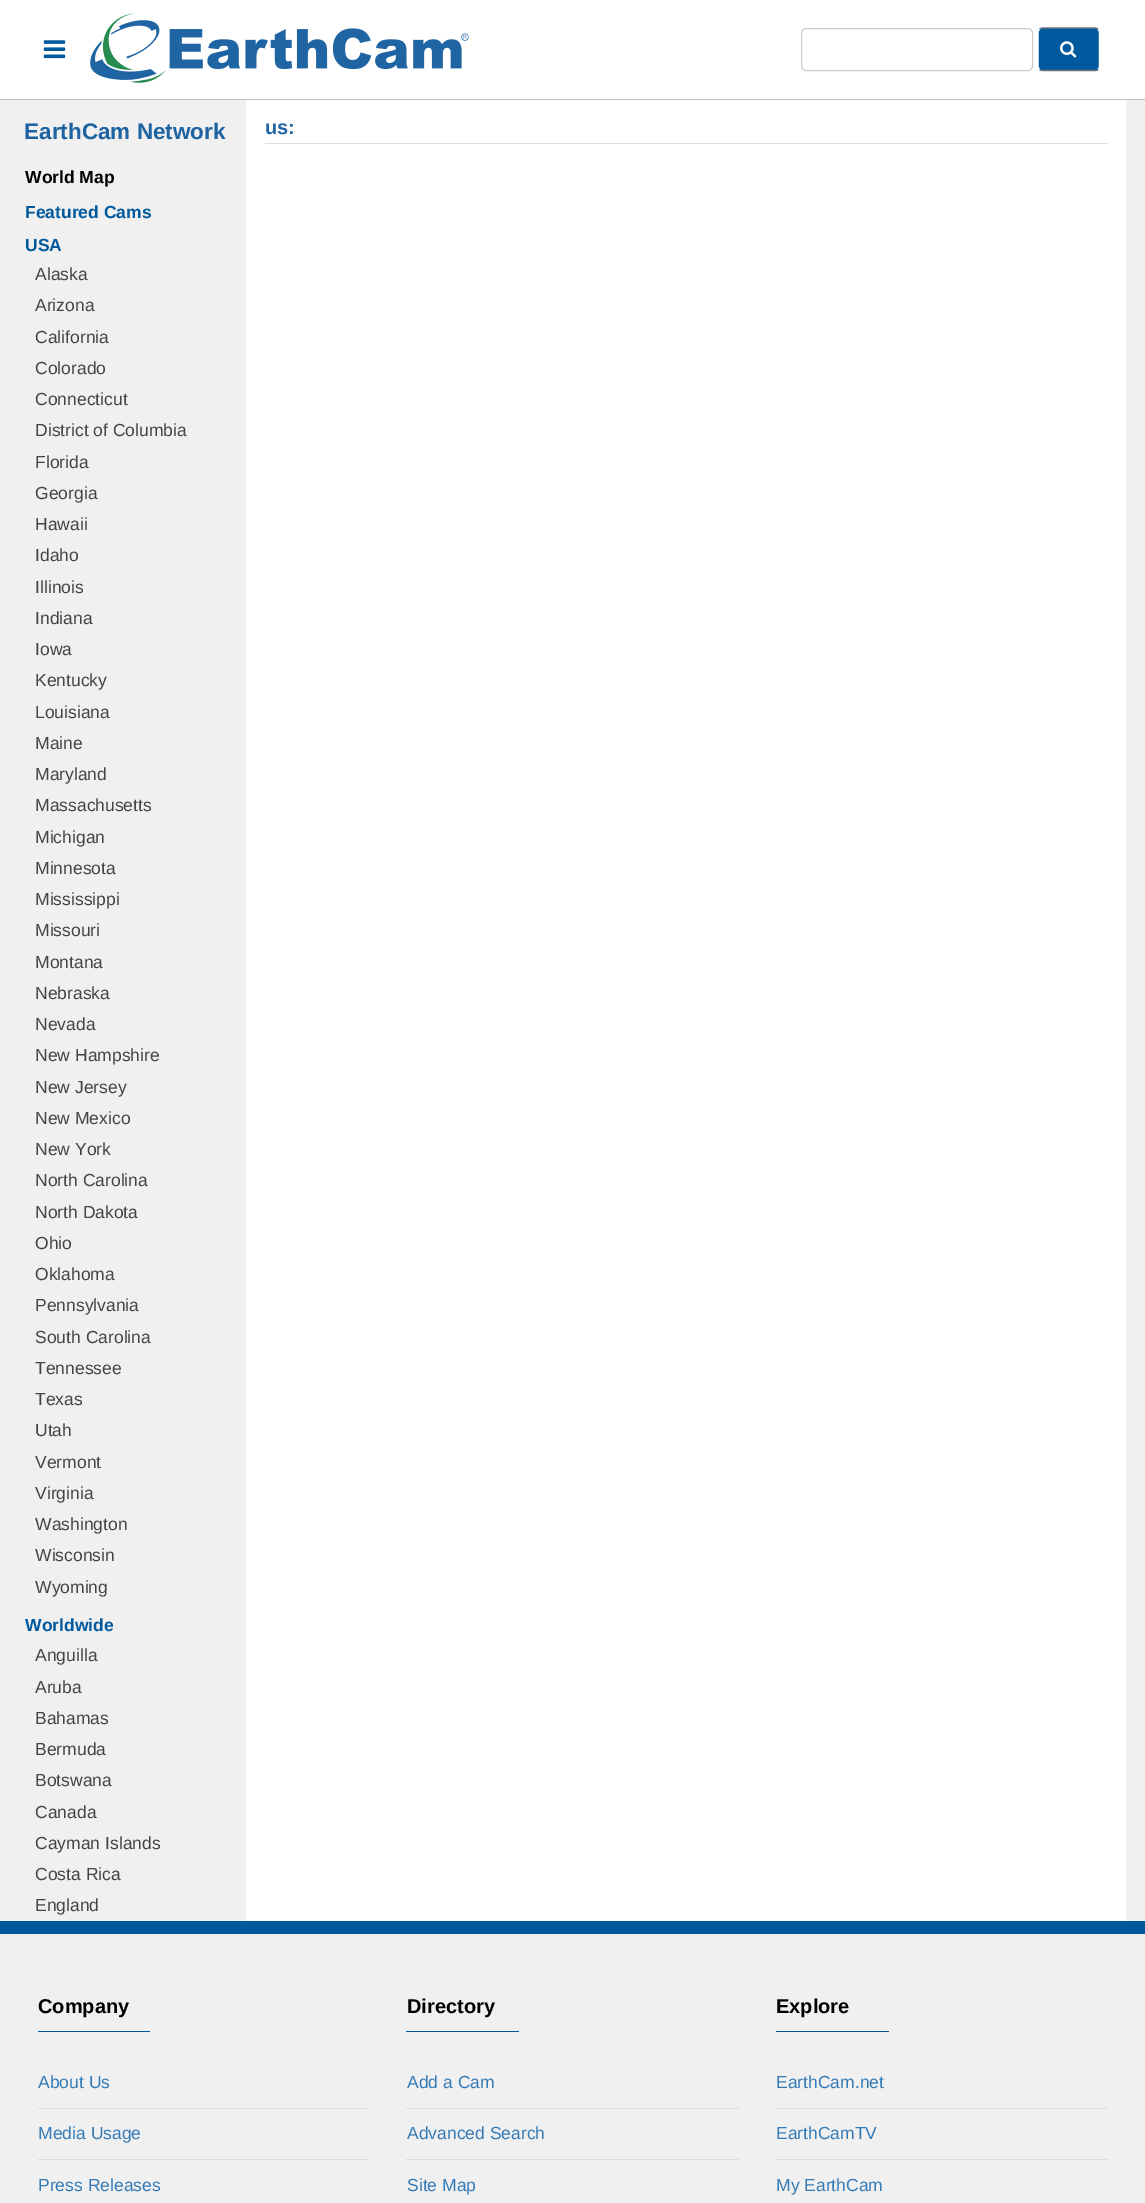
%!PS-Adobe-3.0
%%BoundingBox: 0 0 1145 2203
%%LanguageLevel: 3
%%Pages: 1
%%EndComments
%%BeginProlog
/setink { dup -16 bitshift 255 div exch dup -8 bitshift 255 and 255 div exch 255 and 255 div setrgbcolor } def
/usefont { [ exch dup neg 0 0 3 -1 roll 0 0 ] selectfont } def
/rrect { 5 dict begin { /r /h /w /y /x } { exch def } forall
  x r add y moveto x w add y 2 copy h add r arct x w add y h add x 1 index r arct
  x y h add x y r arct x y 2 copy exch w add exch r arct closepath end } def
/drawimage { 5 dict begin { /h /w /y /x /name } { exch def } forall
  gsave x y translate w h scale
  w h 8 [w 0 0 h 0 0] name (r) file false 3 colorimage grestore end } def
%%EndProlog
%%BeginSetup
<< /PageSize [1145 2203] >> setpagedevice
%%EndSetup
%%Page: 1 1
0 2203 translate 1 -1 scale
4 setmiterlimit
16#F0F0F0 setink
0 0 1145 2203 rectfill
16#FFFFFF setink
0 0 1145 99 rectfill
16#C3C3C3 setink
0 99 1145 1 rectfill
(img1.raw) 43 40 23 19 drawimage
(img2.raw) 90 13 379 70 drawimage
16#CCCCCC setink
801.5 28.5 231 42 4.5 rrect stroke
16#00589D setink
1038 28 62 43 5 rrect fill
16#6C757D setink
1.2 setlinewidth
1039.5 29.5 moveto 1040 28.5 1041.5 28 1042.5 28 curveto 1095 28 lineto 1096 28 1097.5 28.5 1098 29.5 curveto stroke
16#FFFFFF setink
1098 29.5 moveto 1099 30 1099.5 31.5 1099.5 32.5 curveto 1099.5 66 lineto 1099.5 67.5 1099 68.5 1098 69.5 curveto stroke
16#6C757D setink
1098 69.5 moveto 1097.5 70 1096 70.5 1095 70.5 curveto 1042.5 70.5 lineto 1041.5 70.5 1040 70 1039.5 69.5 curveto stroke
16#FFFFFF setink
1039.5 69.5 moveto 1038.5 68.5 1038 67.5 1038 66 curveto 1038 32.5 lineto 1038 31.5 1038.5 30 1039.5 29.5 curveto stroke
(img3.raw) 1060 41 17 17 drawimage
246 100 880 1821 rectfill
/LiberationSans-Bold 22.5 usefont
16#1D63A2 setink
24 139 moveto (EarthCam Network) show
/LiberationSans-Bold 17.5 usefont
16#000000 setink
25 183 moveto (World Map) show
16#00589D setink
25 218 moveto (Featured Cams) show
25 251 moveto (USA) show
/LiberationSans-Regular 17.5 usefont
16#444444 setink
[
    [(Alaska) 35 280]
    [(Arizona) 35 311]
    [(California) 35 343]
    [(Colorado) 35 374]
    [(Connecticut) 35 405]
    [(District of Columbia) 35 436]
    [(Florida) 35 468]
    [(Georgia) 35 499]
    [(Hawaii) 35 530]
    [(Idaho) 35 561]
    [(Illinois) 35 593]
    [(Indiana) 35 624]
    [(Iowa) 35 655]
    [(Kentucky) 35 686]
    [(Louisiana) 35 718]
    [(Maine) 35 749]
    [(Maryland) 35 780]
    [(Massachusetts) 35 811]
    [(Michigan) 35 843]
    [(Minnesota) 35 874]
    [(Mississippi) 35 905]
    [(Missouri) 35 936]
    [(Montana) 35 968]
    [(Nebraska) 35 999]
    [(Nevada) 35 1030]
    [(New Hampshire) 35 1061]
    [(New Jersey) 35 1093]
    [(New Mexico) 35 1124]
    [(New York) 35 1155]
    [(North Carolina) 35 1186]
    [(North Dakota) 35 1218]
    [(Ohio) 35 1249]
    [(Oklahoma) 35 1280]
    [(Pennsylvania) 35 1311]
    [(South Carolina) 35 1343]
    [(Tennessee) 35 1374]
    [(Texas) 35 1405]
    [(Utah) 35 1436]
    [(Vermont) 35 1468]
    [(Virginia) 35 1499]
    [(Washington) 35 1530]
    [(Wisconsin) 35 1561]
    [(Wyoming) 35 1593]
] { aload pop moveto show } forall
/LiberationSans-Bold 17.5 usefont
16#00589D setink
25 1631 moveto (Worldwide) show
/LiberationSans-Regular 17.5 usefont
16#444444 setink
[
    [(Anguilla) 35 1661]
    [(Aruba) 35 1693]
    [(Bahamas) 35 1724]
    [(Bermuda) 35 1755]
    [(Botswana) 35 1786]
    [(Canada) 35 1818]
    [(Cayman Islands) 35 1849]
    [(Costa Rica) 35 1880]
    [(England) 35 1911]
] { aload pop moveto show } forall
16#DDDDDD setink
265 143 843 1 rectfill
/LiberationSans-Bold 20 usefont
16#1D63A2 setink
265 134 moveto (us:) show
16#00589D setink
0 1921 1145 13 rectfill
16#000000 setink
38 2013 moveto (Company) show
16#00589D setink
38 2031 112 1 rectfill
/LiberationSans-Regular 17.5 usefont
16#337AB7 setink
38 2088 moveto (About Us) show
16#DDDDDD setink
38 2108 331 1 rectfill
16#337AB7 setink
38 2139 moveto (Media Usage) show
16#DDDDDD setink
38 2159 331 1 rectfill
16#337AB7 setink
38 2191 moveto (Press Releases) show
/LiberationSans-Bold 20 usefont
16#000000 setink
407 2013 moveto (Directory) show
16#00589D setink
406 2031 113 1 rectfill
/LiberationSans-Regular 17.5 usefont
16#337AB7 setink
407 2088 moveto (Add a Cam) show
16#DDDDDD setink
406 2108 333 1 rectfill
16#337AB7 setink
407 2139 moveto (Advanced Search) show
16#DDDDDD setink
406 2159 333 1 rectfill
16#337AB7 setink
407 2191 moveto (Site Map) show
/LiberationSans-Bold 20 usefont
16#000000 setink
776 2013 moveto (Explore) show
16#00589D setink
776 2031 113 1 rectfill
/LiberationSans-Regular 17.5 usefont
16#337AB7 setink
776 2088 moveto (EarthCam.net) show
16#DDDDDD setink
776 2108 332 1 rectfill
16#337AB7 setink
776 2139 moveto (EarthCamTV) show
16#DDDDDD setink
776 2159 332 1 rectfill
16#337AB7 setink
776 2191 moveto (My EarthCam) show
showpage
%%EOF
